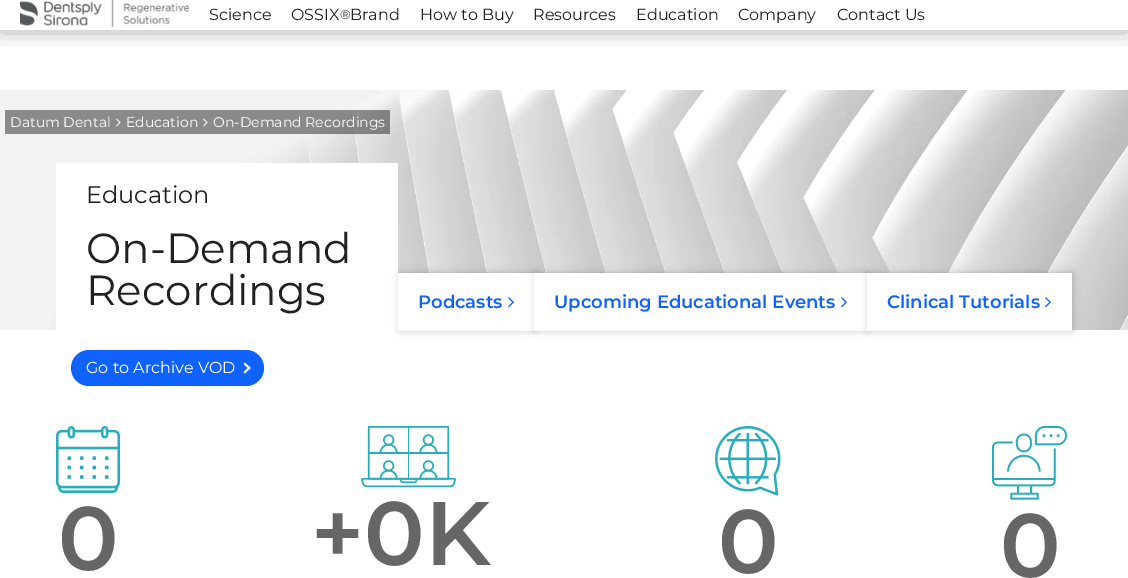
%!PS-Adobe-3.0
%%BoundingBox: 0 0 1128 578
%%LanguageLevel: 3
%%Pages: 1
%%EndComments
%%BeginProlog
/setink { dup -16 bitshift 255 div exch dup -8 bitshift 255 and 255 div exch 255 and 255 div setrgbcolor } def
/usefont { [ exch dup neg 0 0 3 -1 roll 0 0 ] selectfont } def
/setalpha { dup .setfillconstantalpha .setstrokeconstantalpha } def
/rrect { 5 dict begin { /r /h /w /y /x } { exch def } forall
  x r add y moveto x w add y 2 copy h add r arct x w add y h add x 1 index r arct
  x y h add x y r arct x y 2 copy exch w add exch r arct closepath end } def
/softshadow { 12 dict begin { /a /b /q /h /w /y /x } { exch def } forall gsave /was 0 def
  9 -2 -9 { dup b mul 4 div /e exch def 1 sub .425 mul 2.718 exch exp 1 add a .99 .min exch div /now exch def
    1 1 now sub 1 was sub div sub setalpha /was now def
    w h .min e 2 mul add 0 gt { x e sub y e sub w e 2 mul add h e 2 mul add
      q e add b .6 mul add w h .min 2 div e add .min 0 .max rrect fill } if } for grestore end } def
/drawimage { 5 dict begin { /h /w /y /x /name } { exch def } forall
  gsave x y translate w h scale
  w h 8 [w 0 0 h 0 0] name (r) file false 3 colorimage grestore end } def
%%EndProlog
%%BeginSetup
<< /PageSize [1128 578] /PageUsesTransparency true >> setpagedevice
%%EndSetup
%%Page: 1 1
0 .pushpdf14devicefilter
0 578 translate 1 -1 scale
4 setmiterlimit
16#FFFFFF setink
0 0 1128 578 rectfill
gsave
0 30 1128 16 rectclip
16#000000 setink
2 1 1124 26 0 11 0.5 softshadow
grestore
(img1.raw) 20 0 169 27 drawimage
/Montserrat-Regular 16 usefont
16#212121 setink
209 20 moveto (Science) show
291 20 moveto (OSSIX) show
/Montserrat-Regular 13 usefont
340 19 moveto (®) show
/Montserrat-Regular 16 usefont
[
    [(Brand) 350 20]
    [(How to Buy) 420 20]
    [(Resources) 533 20]
    [(Education) 636 20]
    [(Company) 738 20]
    [(Contact Us) 837 20]
] { aload pop moveto show } forall
(img2.raw) 0 90 1128 240 drawimage
0.5 setalpha
5 110 385 24 rectfill
/Montserrat-Regular 14 usefont
1 setalpha
16#FFFFFF setink
10 127 moveto (Datum Dental) show
(img3.raw) 116 118 5 9 drawimage
126 127 moveto (Education) show
(img3.raw) 203 118 5 9 drawimage
213 127 moveto (On-Demand Recordings) show
56 163 342 167 rectfill
/Montserrat-Regular 24 usefont
16#212121 setink
86 203 moveto (Education) show
/Montserrat-Regular 42 usefont
86 263 moveto (On-Demand) show
86 305 moveto (Recordings) show
16#000000 setink
399 273 136 58 0 3.5 0.2 softshadow
16#FFFFFF setink
398 273 136 58 rectfill
/Montserrat-SemiBold 18 usefont
16#0F62FE setink
418 308 moveto (Podcasts) show
(img4.raw) 508 297 6 11 drawimage
16#000000 setink
535 273 333 58 0 3.5 0.2 softshadow
16#FFFFFF setink
534 273 333 58 rectfill
16#0F62FE setink
554 308 moveto (Upcoming Educational Events) show
(img4.raw) 841 297 6 11 drawimage
16#000000 setink
868 273 205 58 0 3.5 0.2 softshadow
16#FFFFFF setink
867 273 205 58 rectfill
16#0F62FE setink
887 308 moveto (Clinical Tutorials) show
(img4.raw) 1045 297 6 11 drawimage
71 350 193 36 18 rrect fill
/Montserrat-Regular 16 usefont
16#FFFFFF setink
86 373 moveto (Go to Archive VOD) show
243.5 364 moveto 245 362.5 lineto 250.5 368 lineto 249.5 369.5 lineto closepath fill
243.5 372 moveto 249.5 366.5 lineto 250.5 368 lineto 245 373.5 lineto closepath fill
(img5.raw) 56 426 64 67 drawimage
/Montserrat-SemiBold 90 usefont
16#666666 setink
58 570 moveto (0) show
(img6.raw) 361 426 95 62 drawimage
311 565 moveto (+0K) show
(img7.raw) 715 426 66 70 drawimage
718 573 moveto (0) show
(img8.raw) 992 426 76 74 drawimage
1000 577 moveto (0) show
.poppdf14devicefilter showpage
%%EOF
